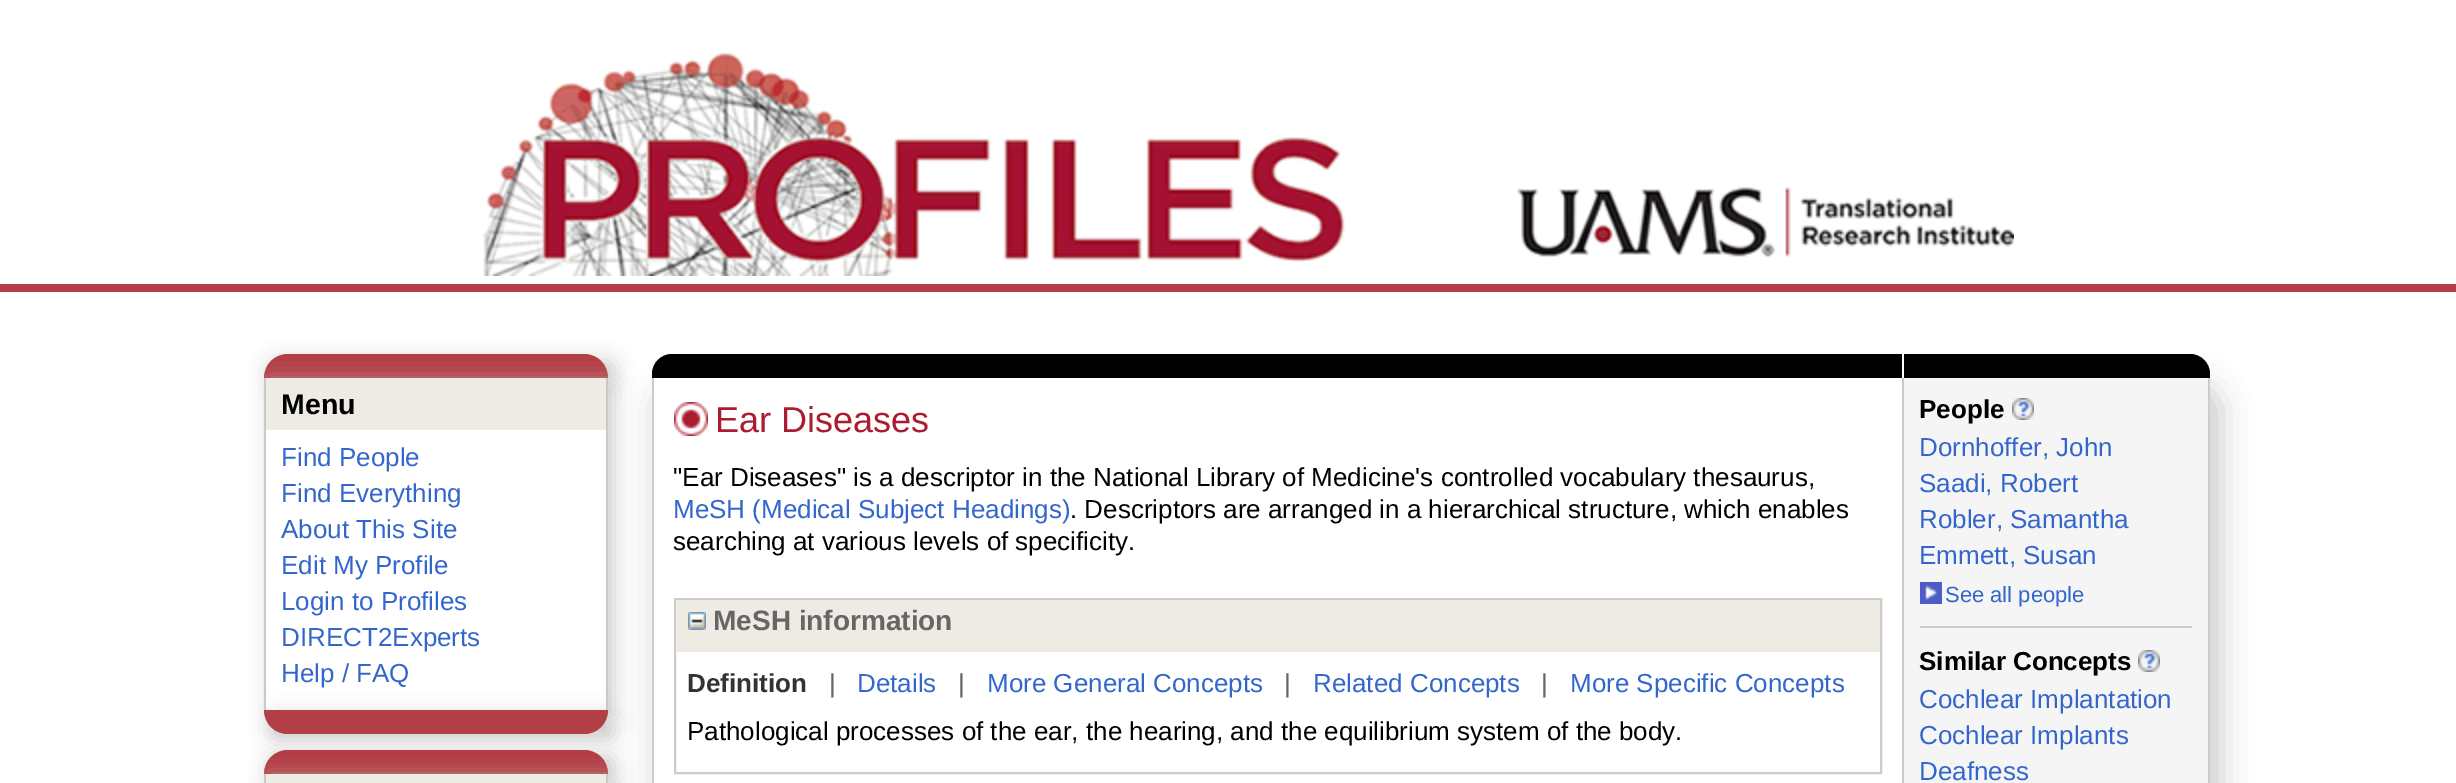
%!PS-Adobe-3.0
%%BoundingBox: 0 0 2456 783
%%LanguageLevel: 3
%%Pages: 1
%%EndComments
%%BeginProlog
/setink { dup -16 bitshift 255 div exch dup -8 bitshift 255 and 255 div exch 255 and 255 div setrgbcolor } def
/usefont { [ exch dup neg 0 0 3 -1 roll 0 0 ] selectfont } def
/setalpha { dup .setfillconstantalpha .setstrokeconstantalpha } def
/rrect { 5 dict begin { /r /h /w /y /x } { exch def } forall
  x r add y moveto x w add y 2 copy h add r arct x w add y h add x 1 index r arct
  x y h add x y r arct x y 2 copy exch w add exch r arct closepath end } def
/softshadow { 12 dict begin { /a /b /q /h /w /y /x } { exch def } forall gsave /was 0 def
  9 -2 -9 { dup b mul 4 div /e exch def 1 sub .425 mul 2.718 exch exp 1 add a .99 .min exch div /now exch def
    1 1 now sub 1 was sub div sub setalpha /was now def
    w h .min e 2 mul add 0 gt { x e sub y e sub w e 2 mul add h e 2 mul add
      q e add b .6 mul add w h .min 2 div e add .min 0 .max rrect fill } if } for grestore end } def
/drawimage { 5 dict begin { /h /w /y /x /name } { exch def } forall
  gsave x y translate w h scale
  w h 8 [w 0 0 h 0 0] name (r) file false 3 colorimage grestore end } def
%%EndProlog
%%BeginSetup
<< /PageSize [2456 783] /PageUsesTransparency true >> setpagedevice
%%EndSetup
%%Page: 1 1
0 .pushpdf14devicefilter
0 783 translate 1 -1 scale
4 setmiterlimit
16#FFFFFF setink
0 0 2456 783 rectfill
16#B23F45 setink
0 284 2456 8 rectfill
(img1.raw) 483 52 1531 224 drawimage
16#CCCCCC setink
270 360 344 24 24 10 1 softshadow
16#B23F45 setink
288 354 moveto 584 354 lineto 597.5 354 608 364.5 608 378 curveto 264 378 lineto 264 364.5 274.5 354 288 354 curveto closepath fill
16#CCCCCC setink
270 384 344 332 0 10 1 softshadow
[
    [266 430 340 280 16#FFFFFF]
    [606 378 2 332 16#C9C9C9]
    [264 378 2 332 16#C9C9C9]
    [266 378 340 52 16#EEEBE5]
] { aload pop setink rectfill } forall
/LiberationSans-Bold 28.5 usefont
16#000000 setink
281 414 moveto (Menu) show
/LiberationSans-Regular 26 usefont
16#3366CC setink
[
    [(Find People) 281 466]
    [(Find Everything) 281 502]
    [(About This Site) 281 538]
    [(Edit My Profile) 281 574]
    [(Login to Profiles) 281 610]
    [(DIRECT2Experts) 281 646]
    [(Help / FAQ) 281 682]
] { aload pop moveto show } forall
16#CCCCCC setink
270 716 344 24 24 10 1 softshadow
16#B23F45 setink
264 710 moveto 608 710 lineto 608 723.5 597.5 734 584 734 curveto 288 734 lineto 274.5 734 264 723.5 264 710 curveto closepath fill
16#CCCCCC setink
270 756 344 24 24 10 1 softshadow
16#B23F45 setink
288 750 moveto 584 750 lineto 597.5 750 608 760.5 608 774 curveto 264 774 lineto 264 760.5 274.5 750 288 750 curveto closepath fill
16#CCCCCC setink
270 780 344 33 0 10 1 softshadow
[
    [606 774 2 9 16#C9C9C9]
    [264 774 2 9 16#C9C9C9]
    [266 774 340 9 16#EEEBE5]
] { aload pop setink rectfill } forall
gsave
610 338 moveto 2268 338 lineto 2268 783 lineto 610 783 lineto closepath 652 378 moveto 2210 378 lineto 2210 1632 lineto 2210 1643 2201 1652 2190 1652 curveto 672 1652 lineto 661 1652 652 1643 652 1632 curveto closepath eoclip newpath
16#CCCCCC setink
656 384 1566 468 24 15 1 softshadow
grestore
16#000000 setink
672 354 moveto 2190 354 lineto 2201 354 2210 363 2210 374 curveto 2210 378 lineto 652 378 lineto 652 374 lineto 652 363 661 354 672 354 curveto closepath fill
16#FFFFFF setink
1902 354 2 24 rectfill
16#CCCCCC setink
652 378 moveto 2210 378 lineto 2210 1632 lineto 2210 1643 2201 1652 2190 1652 curveto 672 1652 lineto 661 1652 652 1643 652 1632 curveto closepath 654 378 moveto 2208 378 lineto 2208 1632 lineto 2208 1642 2200 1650 2190 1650 curveto 672 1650 lineto 662 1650 654 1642 654 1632 curveto closepath eofill
(img2.raw) 674 402 34 34 drawimage
/LiberationSans-Regular 36 usefont
16#AC1B30 setink
715 432 moveto (Ear Diseases) show
/LiberationSans-Regular 26 usefont
16#000000 setink
673 486 moveto ("Ear Diseases" is a descriptor in the National Library of Medicine's controlled vocabulary thesaurus,) show
16#3366CC setink
673 518 moveto (MeSH \(Medical Subject Headings\)) show
16#000000 setink
1070 518 moveto (. Descriptors are arranged in a hierarchical structure, which enables) show
673 550 moveto (searching at various levels of specificity.) show
16#CCCCCC setink
2 setlinewidth
675 599 1206 174 rectstroke
16#EEEBE5 setink
676 600 1204 52 rectfill
(img3.raw) 688 612 18 18 drawimage
/LiberationSans-Bold 28 usefont
16#666666 setink
713 630 moveto (MeSH information) show
/LiberationSans-Bold 26 usefont
16#333333 setink
687 692 moveto (Definition) show
/LiberationSans-Regular 26 usefont
16#666666 setink
829 692 moveto (|) show
16#3366CC setink
857 692 moveto (Details) show
16#666666 setink
958 692 moveto (|) show
16#3366CC setink
987 692 moveto (More General Concepts) show
16#666666 setink
1284 692 moveto (|) show
16#3366CC setink
1313 692 moveto (Related Concepts) show
16#666666 setink
1541 692 moveto (|) show
16#3366CC setink
1570 692 moveto (More Specific Concepts) show
16#000000 setink
687 740 moveto (Pathological processes of the ear, the hearing, and the equilibrium system of the body.) show
16#F5F5F5 setink
1904 378 304 405 rectfill
16#C9C9C9 setink
1902 378 2 405 rectfill
/LiberationSans-Bold 26 usefont
16#000000 setink
1919 418 moveto (People) show
(img4.raw) 2012 398 22 22 drawimage
/LiberationSans-Regular 26 usefont
16#3366CC setink
[
    [(Dornhoffer, John) 1919 456]
    [(Saadi, Robert) 1919 492]
    [(Robler, Samantha) 1919 528]
    [(Emmett, Susan) 1919 564]
] { aload pop moveto show } forall
(img5.raw) 1920 582 22 22 drawimage
/LiberationSans-Regular 22 usefont
1945 602 moveto (See all people) show
16#CCCCCC setink
1920 626 272 2 rectfill
/LiberationSans-Bold 26 usefont
16#000000 setink
1919 670 moveto (Similar Concepts) show
(img4.raw) 2138 650 22 22 drawimage
/LiberationSans-Regular 26 usefont
16#3366CC setink
[
    [(Cochlear Implantation) 1919 708]
    [(Cochlear Implants) 1919 744]
    [(Deafness) 1919 780]
] { aload pop moveto show } forall
.poppdf14devicefilter showpage
%%EOF
